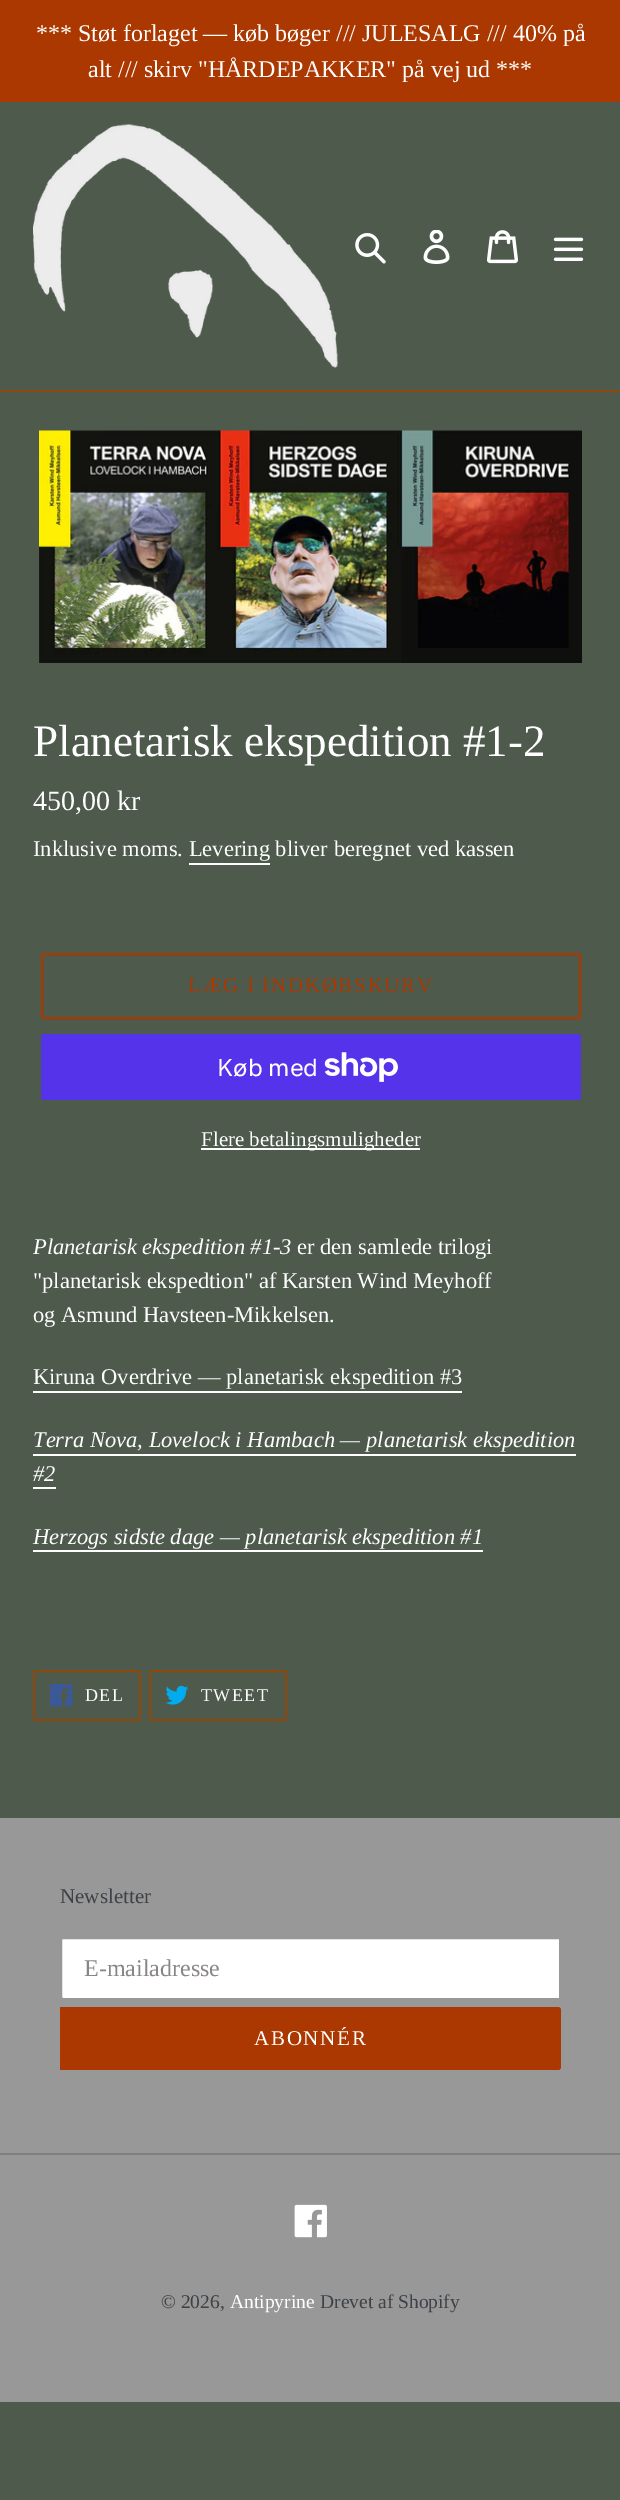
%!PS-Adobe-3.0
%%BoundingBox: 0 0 620 2500
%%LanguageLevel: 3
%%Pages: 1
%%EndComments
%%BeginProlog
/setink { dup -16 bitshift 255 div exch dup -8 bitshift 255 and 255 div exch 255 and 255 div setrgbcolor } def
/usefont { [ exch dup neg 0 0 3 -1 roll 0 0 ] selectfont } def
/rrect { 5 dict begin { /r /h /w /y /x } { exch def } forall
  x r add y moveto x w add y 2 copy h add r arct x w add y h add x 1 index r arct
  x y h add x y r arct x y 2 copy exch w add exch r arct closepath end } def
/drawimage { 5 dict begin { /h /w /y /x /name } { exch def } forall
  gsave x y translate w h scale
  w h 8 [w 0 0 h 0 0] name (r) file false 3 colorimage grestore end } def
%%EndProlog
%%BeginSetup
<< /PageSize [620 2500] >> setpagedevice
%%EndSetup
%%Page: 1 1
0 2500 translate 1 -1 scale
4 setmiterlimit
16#4D5A4C setink
0 0 620 2500 rectfill
16#AA3800 setink
0 0 620 102 rectfill
/LiberationSerif-Regular 24 usefont
16#FFFFFF setink
36 41 moveto (*** Støt forlaget — køb bøger /// JULESALG /// 40% på) show
88 77 moveto (alt /// skirv "HÅRDEPAKKER" på vej ud ***) show
16#8B4910 setink
0 390 620 2 rectfill
(img1.raw) 33 124 305 244 drawimage
(img2.raw) 355 233 31 31 drawimage
(img3.raw) 423 230 27 34 drawimage
(img4.raw) 487 230 31 34 drawimage
(img5.raw) 553 237 31 24 drawimage
(img6.raw) 39 430 543 233 drawimage
/LiberationSerif-Regular 45 usefont
16#FFFFFF setink
33 756 moveto (Planetarisk ekspedition #1-2) show
/LiberationSerif-Regular 28 usefont
33 810 moveto (450,00 kr) show
/LiberationSerif-Regular 22.5 usefont
33 856 moveto (Inklusive moms. Levering bliver beregnet ved kassen) show
189 863 81 2 rectfill
16#AA3800 setink
2 setlinewidth
42 954 538 64 2 rrect stroke
/LiberationSerif-Regular 21 usefont
188 992 moveto 1.7 0 (LÆG I INDKØBSKURV) ashow
16#5433EB setink
41 1034 540 66 3 rrect fill
/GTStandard-Regular 24 usefont
16#FFFFFF setink
217 1076 moveto (Køb med) show
(img7.raw) 324 1052 74 30 drawimage
201 1148 219 2 rectfill
/LiberationSerif-Regular 21 usefont
201 1146 moveto (Flere betalingsmuligheder) show
/LiberationSerif-Italic 22.5 usefont
33 1254 moveto (Planetarisk ekspedition #1-3) show
/LiberationSerif-Regular 22.5 usefont
[
    [(er den samlede trilogi) 297 1254]
    [("planetarisk ekspedtion" af Karsten Wind Meyhoff) 33 1288]
    [(og Asmund Havsteen-Mikkelsen.) 33 1322]
    [(Kiruna Overdrive — planetarisk ekspedition #3) 33 1384]
] { aload pop moveto show } forall
33 1391 429 2 rectfill
/LiberationSerif-Italic 22.5 usefont
33 1447 moveto (Terra Nova, Lovelock i Hambach — planetarisk ekspedition) show
33 1454 543 2 rectfill
33 1481 moveto (#2) show
33 1487 23 2 rectfill
33 1544 moveto (Herzogs sidste dage — planetarisk ekspedition #1) show
33 1550 450 2 rectfill
16#8B4910 setink
34 1671 106 49 2 rrect stroke
(img8.raw) 50 1684 23 23 drawimage
/LiberationSerif-Regular 18 usefont
16#FFFFFF setink
85 1701 moveto 1.5 0 (DEL) ashow
16#8B4910 setink
150 1671 136 49 2 rrect stroke
(img9.raw) 165 1685 24 20 drawimage
16#FFFFFF setink
201 1701 moveto 1.5 0 (TWEET) ashow
16#989898 setink
0 1818 620 584 rectfill
/LiberationSerif-Regular 21 usefont
16#3D4246 setink
60 1903 moveto (Newsletter) show
16#FFFFFF setink
63 1938 moveto 560 1938 lineto 560 1999 lineto 63 1999 lineto 62 1999 61 1998 61 1997 curveto 61 1940 lineto 61 1939 62 1938 63 1938 curveto closepath gsave fill grestore
16#989898 setink
stroke
/LiberationSerif-Regular 24 usefont
16#8A8585 setink
84 1976 moveto (E-mailadresse) show
16#AA3800 setink
60 2007 moveto 558 2007 lineto 559.5 2007 561 2008.5 561 2010 curveto 561 2067 lineto 561 2068.5 559.5 2070 558 2070 curveto 60 2070 lineto closepath fill
/LiberationSerif-Regular 21 usefont
16#FFFFFF setink
254 2045 moveto 1.7 0 (ABONNÉR) ashow
16#7F7F7F setink
0 2153 620 2 rectfill
(img10.raw) 294 2204 33 34 drawimage
/LiberationSerif-Regular 19.5 usefont
16#3D4246 setink
161 2308 moveto (© 2026,) show
16#FFFFFF setink
230 2308 moveto (Antipyrine) show
16#3D4246 setink
320 2308 moveto (Drevet af Shopify) show
showpage
%%EOF
